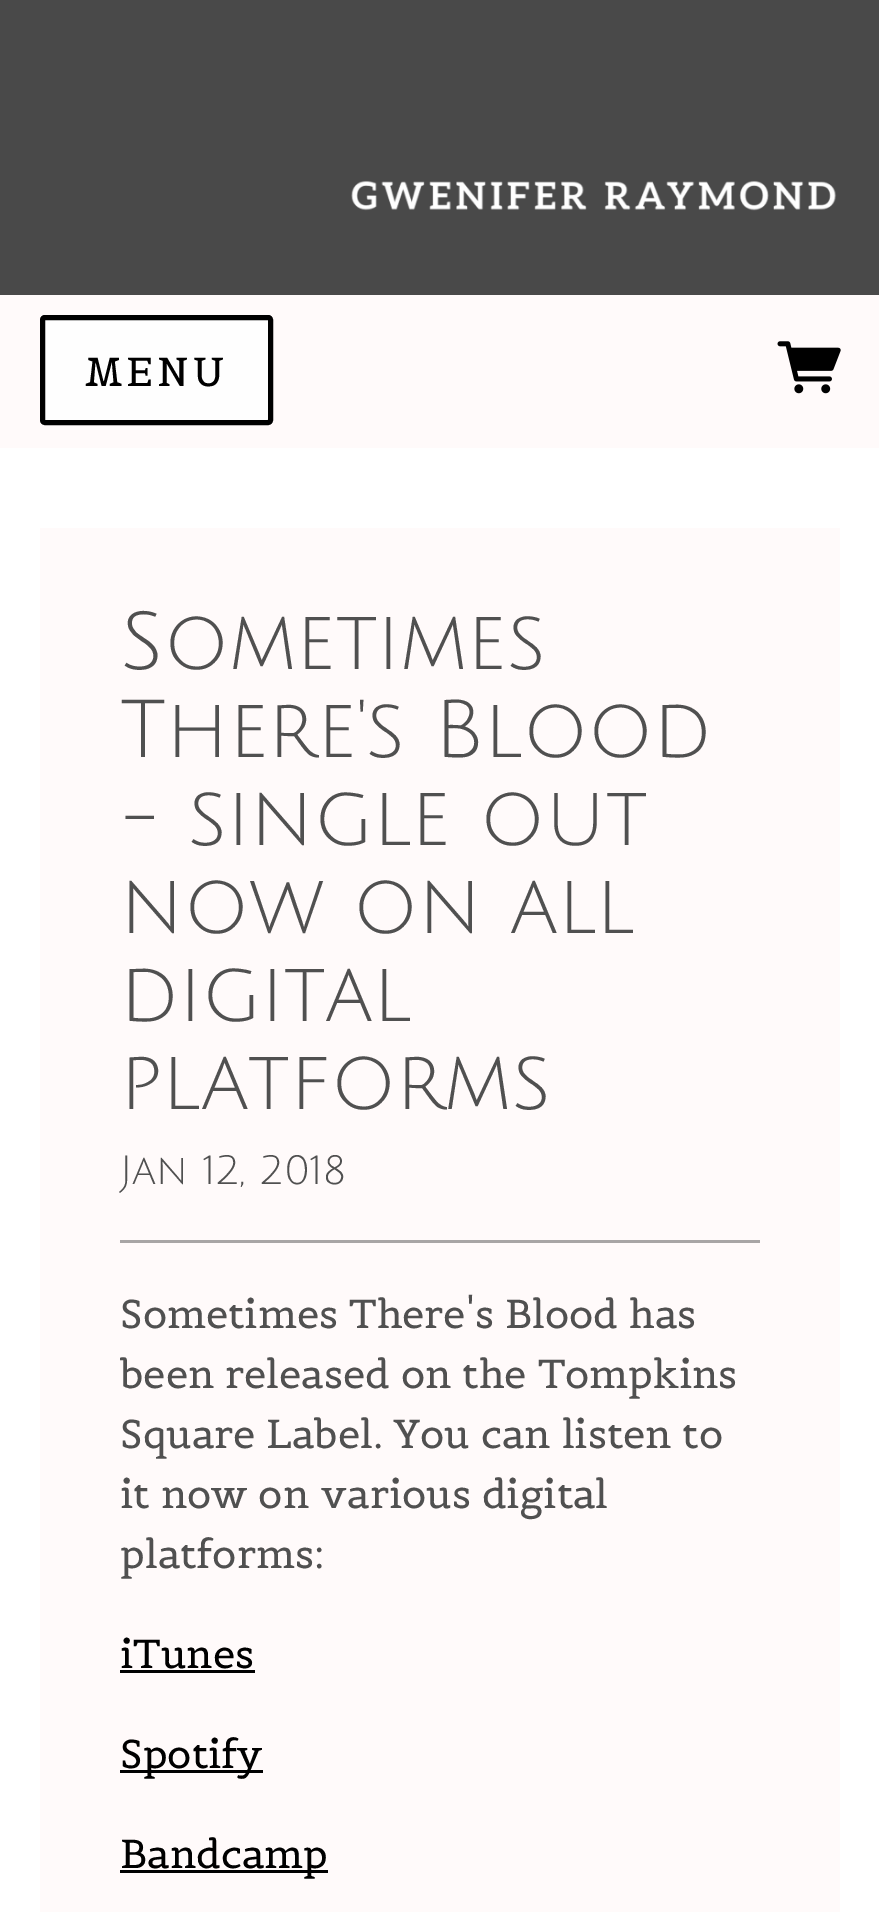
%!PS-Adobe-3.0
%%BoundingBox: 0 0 879 1912
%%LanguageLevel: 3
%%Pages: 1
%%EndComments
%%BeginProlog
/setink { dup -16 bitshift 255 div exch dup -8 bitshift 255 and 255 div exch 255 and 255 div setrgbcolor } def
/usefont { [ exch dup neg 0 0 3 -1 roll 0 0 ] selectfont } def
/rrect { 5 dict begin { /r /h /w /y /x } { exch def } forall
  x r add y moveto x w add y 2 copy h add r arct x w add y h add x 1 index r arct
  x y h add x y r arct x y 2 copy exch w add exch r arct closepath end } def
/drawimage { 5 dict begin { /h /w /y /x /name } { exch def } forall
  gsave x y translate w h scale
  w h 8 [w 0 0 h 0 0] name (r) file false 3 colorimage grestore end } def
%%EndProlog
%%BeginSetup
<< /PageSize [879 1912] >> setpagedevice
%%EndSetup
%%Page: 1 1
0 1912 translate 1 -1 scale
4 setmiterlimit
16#FFFFFF setink
0 0 879 1912 rectfill
16#494949 setink
0 0 879 295 rectfill
(img1.raw) 351 180 486 31 drawimage
16#FFFAFA setink
0 295 879 153 rectfill
16#FEFEFE setink
42.5 317.5 228 105 2.5 rrect gsave fill grestore
16#000000 setink
5 setlinewidth
stroke
/Belgrano-Regular 40 usefont
85 386 moveto 4 0 (MENU) ashow
(img2.raw) 777 341 64 53 drawimage
16#FFFAFA setink
40 528 800 1384 rectfill
16#A8A5A5 setink
120 1240 640 3 rectfill
/JuliusSansOne-Regular 80 usefont
16#505050 setink
[
    [(Sometimes) 120 669]
    [(There's Blood) 120 757]
    [(- single out) 120 845]
    [(now on all) 120 933]
    [(digital) 120 1021]
    [(platforms) 120 1109]
] { aload pop moveto show } forall
/JuliusSansOne-Regular 40 usefont
120 1184 moveto (Jan 12, 2018) show
/Belgrano-Regular 40 usefont
[
    [(Sometimes There's Blood has) 120 1328]
    [(been released on the Tompkins) 120 1388]
    [(Square Label. You can listen to) 120 1448]
    [(it now on various digital) 120 1508]
    [(platforms:) 120 1568]
] { aload pop moveto show } forall
16#000000 setink
120 1668 moveto (iTunes) show
120 1670 135 3 rectfill
120 1770 143 3 rectfill
120 1768 moveto (Spotify) show
120 1870 208 3 rectfill
120 1868 moveto (Bandcamp) show
showpage
%%EOF
